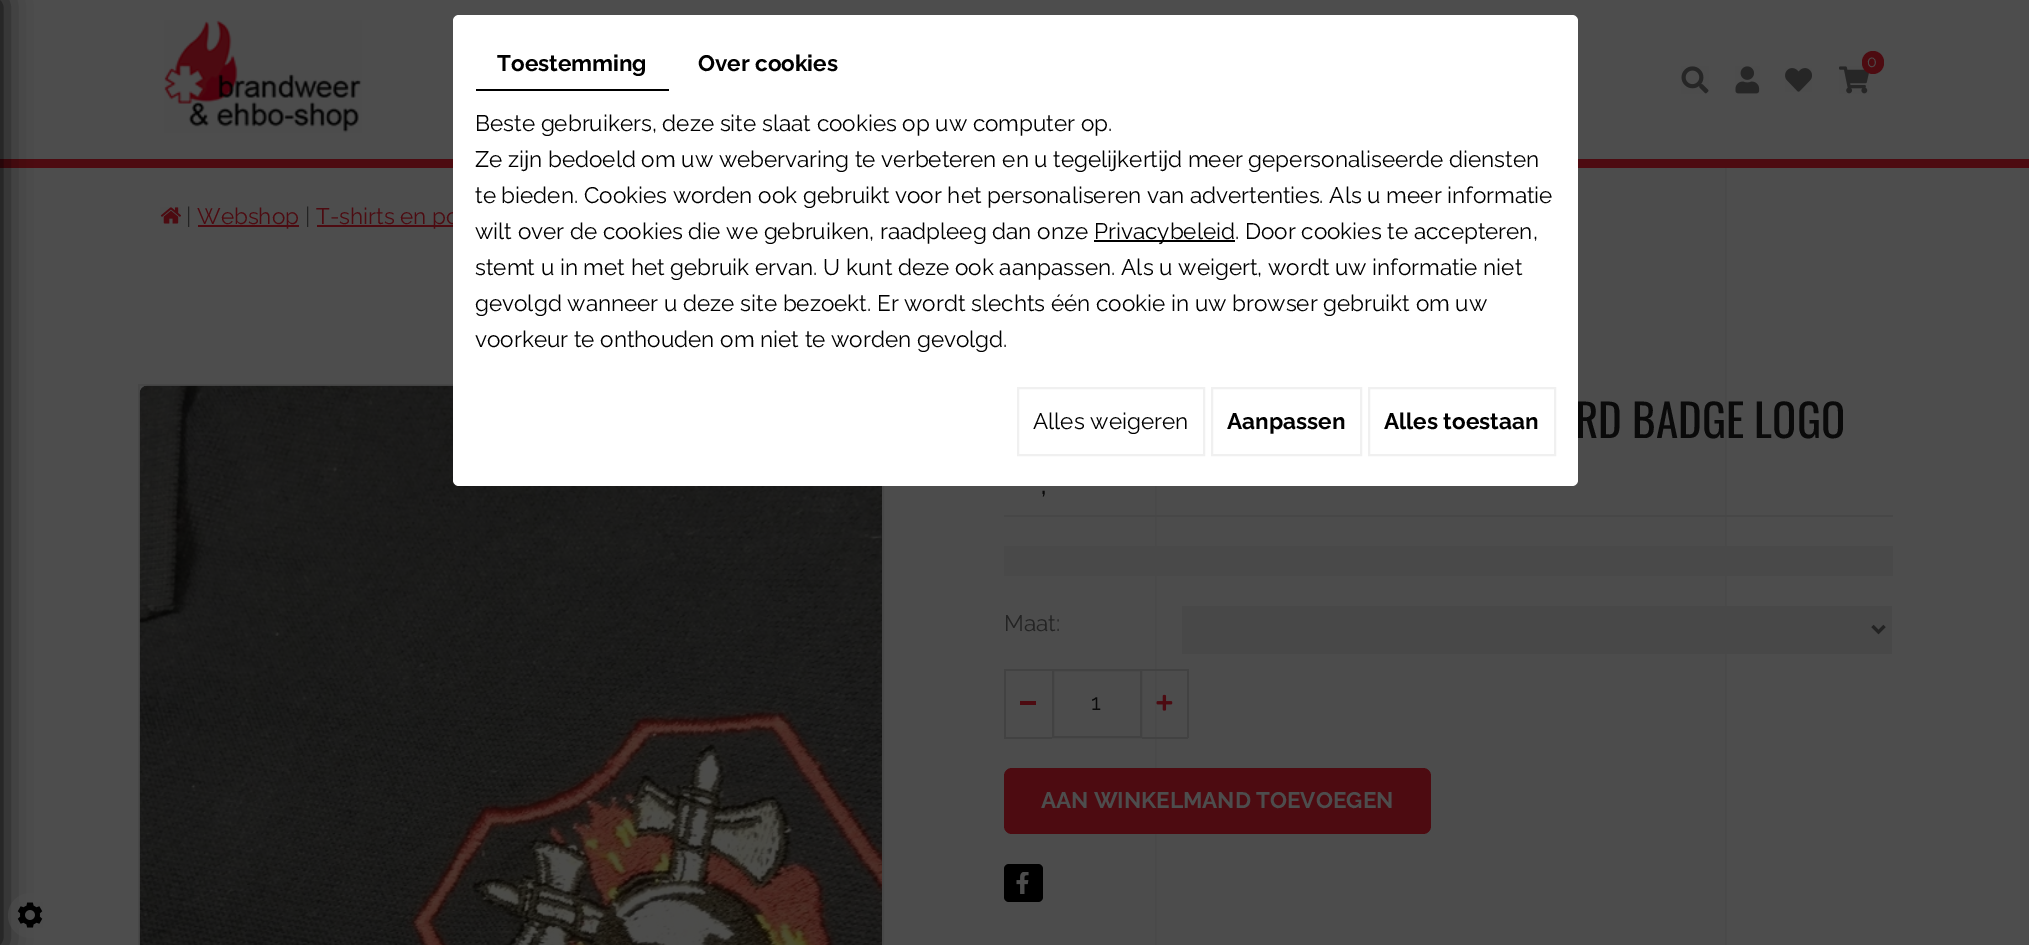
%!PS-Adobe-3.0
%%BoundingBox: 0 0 2029 945
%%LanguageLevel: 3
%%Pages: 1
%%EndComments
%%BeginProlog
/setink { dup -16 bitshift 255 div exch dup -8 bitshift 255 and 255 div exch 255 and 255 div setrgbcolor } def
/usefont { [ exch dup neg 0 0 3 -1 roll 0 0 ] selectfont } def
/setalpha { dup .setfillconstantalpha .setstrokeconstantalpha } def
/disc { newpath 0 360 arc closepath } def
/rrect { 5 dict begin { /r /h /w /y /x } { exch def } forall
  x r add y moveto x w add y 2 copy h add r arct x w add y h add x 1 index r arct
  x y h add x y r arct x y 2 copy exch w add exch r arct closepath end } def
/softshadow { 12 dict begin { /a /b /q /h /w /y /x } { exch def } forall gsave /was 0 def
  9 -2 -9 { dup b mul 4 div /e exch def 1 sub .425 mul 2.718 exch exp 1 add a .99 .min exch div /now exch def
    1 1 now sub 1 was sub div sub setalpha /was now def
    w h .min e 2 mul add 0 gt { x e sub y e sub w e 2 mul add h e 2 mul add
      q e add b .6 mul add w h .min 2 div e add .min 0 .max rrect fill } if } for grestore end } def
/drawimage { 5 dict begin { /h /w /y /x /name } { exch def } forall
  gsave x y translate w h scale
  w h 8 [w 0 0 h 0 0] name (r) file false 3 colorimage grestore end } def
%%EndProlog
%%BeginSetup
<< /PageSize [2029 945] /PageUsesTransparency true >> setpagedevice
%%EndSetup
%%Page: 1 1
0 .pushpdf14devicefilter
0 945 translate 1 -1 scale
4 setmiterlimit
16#4D4D4D setink
0 0 2029 945 rectfill
16#4D0B11 setink
0 159 2029 9 rectfill
16#000000 setink
-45 0 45 945 0 15 1 softshadow
(img6.raw) 583 168 1144 777 drawimage
16#4D0B11 setink
317 225 136 2 rectfill
/Raleway-Regular 22.5 usefont
316 224 moveto (T-shirts en po) show
16#474747 setink
2 setlinewidth
139 385 744 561 rectstroke
(img8.raw) 139 385 743 560 drawimage
/Oswald-Regular 45 usefont
16#0A0A0A setink
1575 438 moveto (RD BADGE LOGO) show
16#FFFFFF setink
453 15 1125 471 6 rrect fill
16#000000 setink
476 89 193 2 rectfill
/Raleway-Bold 22.5 usefont
497 71 moveto (Toestemming) show
698 71 moveto (Over cookies) show
/Raleway-Regular 22.5 usefont
[
    [(Beste gebruikers, deze site slaat cookies op uw computer op.) 475 131]
    [(Ze zijn bedoeld om uw webervaring te verbeteren en u tegelijkertijd meer gepersonaliseerde diensten) 475 167]
    [(te bieden. Cookies worden ook gebruikt voor het personaliseren van advertenties. Als u meer informatie) 475 203]
    [(wilt over de cookies die we gebruiken, raadpleeg dan onze) 475 239]
] { aload pop moveto show } forall
1094 240 141 2 rectfill
[
    [(Privacybeleid. Door cookies te accepteren,) 1094 239]
    [(stemt u in met het gebruik ervan. U kunt deze ook aanpassen. Als u weigert, wordt uw informatie niet) 475 275]
    [(gevolgd wanneer u deze site bezoekt. Er wordt slechts één cookie in uw browser gebruikt om uw) 475 311]
    [(voorkeur te onthouden om niet te worden gevolgd.) 475 347]
] { aload pop moveto show } forall
16#F0F0F0 setink
1018 388 186 67 rectstroke
16#000000 setink
1033 429 moveto (Alles weigeren) show
16#F0F0F0 setink
1212 388 149 67 rectstroke
/Raleway-Bold 22.5 usefont
16#000000 setink
1227 429 moveto (Aanpassen) show
16#F0F0F0 setink
1369 388 186 67 rectstroke
16#000000 setink
1384 429 moveto (Alles toestaan) show
(img1.raw) 164 20 198 113 drawimage
(img2.raw) 1839 66 30 28 drawimage
16#4D0B11 setink
1862 51 22 23 11 rrect fill
/Raleway-Regular 16 usefont
16#4D4D4D setink
1867 67 moveto (0) show
(img3.raw) 1681 66 28 28 drawimage
(img4.raw) 1735 66 25 28 drawimage
(img5.raw) 1785 68 27 24 drawimage
(img7.raw) 160 207 21 17 drawimage
/Raleway-Regular 22.5 usefont
16#232323 setink
186 224 moveto (|) show
16#4D0B11 setink
198 225 101 2 rectfill
197 224 moveto (Webshop) show
16#232323 setink
305 224 moveto (|) show
16#474747 setink
1004 515 889 2 rectfill
/Raleway-Regular 32 usefont
16#0A0A0A setink
1040 494 moveto (,) show
16#494949 setink
1004 546 889 30 rectfill
/Raleway-Regular 22.5 usefont
16#232323 setink
1004 631 moveto (Maat:) show
16#484848 setink
1182 606 710 48 rectfill
16#232323 setink
3 setlinewidth
1872.5 626 moveto 1878.5 632 lineto 1884.5 626 lineto stroke
[
    [1004 669 48 2 16#424242]
    [1004 737 48 2 16#424242]
    [1004 669 2 69 16#424242]
    [1020 701 16 4 16#4D0B11]
] { aload pop setink rectfill } forall
16#424242 setink
2 setlinewidth
1053 670 88 67 rectstroke
16#0A0A0A setink
1091 710 moveto (1) show
[
    [1142 669 46 2 16#424242]
    [1187 669 2 69 16#424242]
    [1142 737 46 2 16#424242]
] { aload pop setink rectfill } forall
(img9.raw) 1156 694 17 17 drawimage
16#4D0B11 setink
1004 768 427 66 8 rrect fill
/Raleway-Bold 22.5 usefont
16#4D4D4D setink
1041 808 moveto (AAN WINKELMAND TOEVOEGEN) show
16#000000 setink
1004 864 39 38 5 rrect fill
(img10.raw) 1016 872 13 22 drawimage
0.54 setalpha
16#4D4D4D setink
30.5 915.5 22.5 disc fill
1 setalpha
(img11.raw) 17 902 26 26 drawimage
.poppdf14devicefilter showpage
%%EOF
